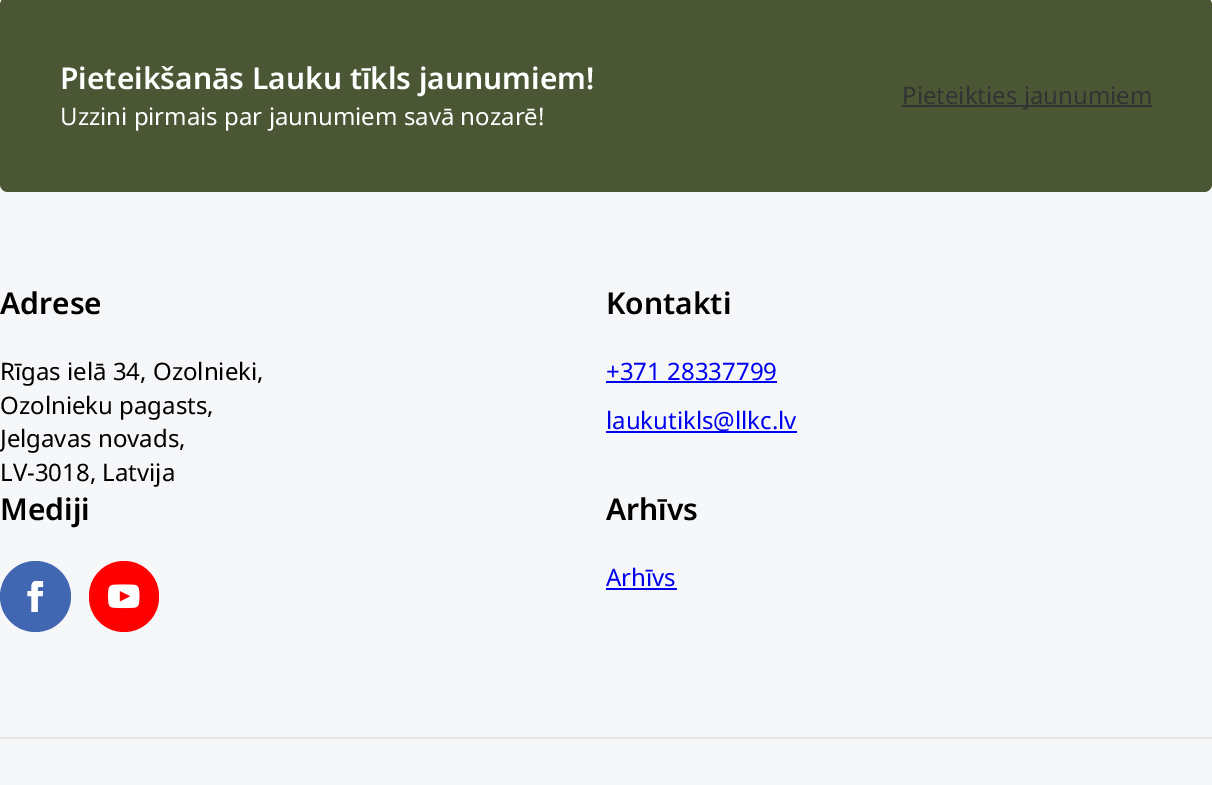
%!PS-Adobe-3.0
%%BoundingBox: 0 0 1212 785
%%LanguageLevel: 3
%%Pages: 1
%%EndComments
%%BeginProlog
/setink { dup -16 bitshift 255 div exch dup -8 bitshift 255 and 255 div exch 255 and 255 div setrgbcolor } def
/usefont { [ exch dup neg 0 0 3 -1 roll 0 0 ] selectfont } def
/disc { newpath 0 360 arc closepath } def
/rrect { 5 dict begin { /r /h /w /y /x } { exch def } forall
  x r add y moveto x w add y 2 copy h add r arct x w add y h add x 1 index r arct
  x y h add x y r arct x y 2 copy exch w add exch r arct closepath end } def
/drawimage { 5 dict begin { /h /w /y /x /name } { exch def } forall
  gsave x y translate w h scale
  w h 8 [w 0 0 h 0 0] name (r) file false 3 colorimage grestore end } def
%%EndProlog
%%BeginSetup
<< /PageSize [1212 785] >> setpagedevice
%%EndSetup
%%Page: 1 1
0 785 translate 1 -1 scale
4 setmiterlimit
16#FFFFFF setink
0 0 1212 785 rectfill
16#F6F7F8 setink
0 184 1212 601 rectfill
16#4B5734 setink
0 -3 1212 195 8 rrect fill
/NotoSans-SemiBold 30 usefont
16#FFFFFF setink
60 89 moveto (Pieteikšanās Lauku tīkls jaunumiem!) show
/NotoSans-Regular 24 usefont
60 125 moveto (Uzzini pirmais par jaunumiem savā nozarē!) show
16#333333 setink
902 105 250 2 rectfill
902 104 moveto (Pieteikties jaunumiem) show
/NotoSans-SemiBold 30 usefont
16#000000 setink
0 314 moveto (Adrese) show
/NotoSans-Regular 24 usefont
[
    [(Rīgas ielā 34, Ozolnieki,) 0 380]
    [(Ozolnieku pagasts,) 0 414]
    [(Jelgavas novads,) 0 447]
    [(LV-3018, Latvija) 0 481]
] { aload pop moveto show } forall
/NotoSans-SemiBold 30 usefont
606 314 moveto (Kontakti) show
/NotoSans-Regular 24 usefont
16#0000EE setink
606 380 moveto (+371 28337799) show
606 381 171 2 rectfill
606 431 191 2 rectfill
606 429 moveto (laukutikls@llkc.lv) show
/NotoSans-SemiBold 30 usefont
16#000000 setink
0 520 moveto (Mediji) show
16#4267B2 setink
35.5 596.5 35.5 disc fill
(img1.raw) 27 581 17 31 drawimage
16#FF0000 setink
89 561 70 71 35 rrect fill
(img2.raw) 108 584 32 25 drawimage
16#000000 setink
606 520 moveto (Arhīvs) show
/NotoSans-Regular 24 usefont
16#0000EE setink
606 586 moveto (Arhīvs) show
606 588 71 2 rectfill
16#E6E6E6 setink
0 737 1212 2 rectfill
showpage
%%EOF
